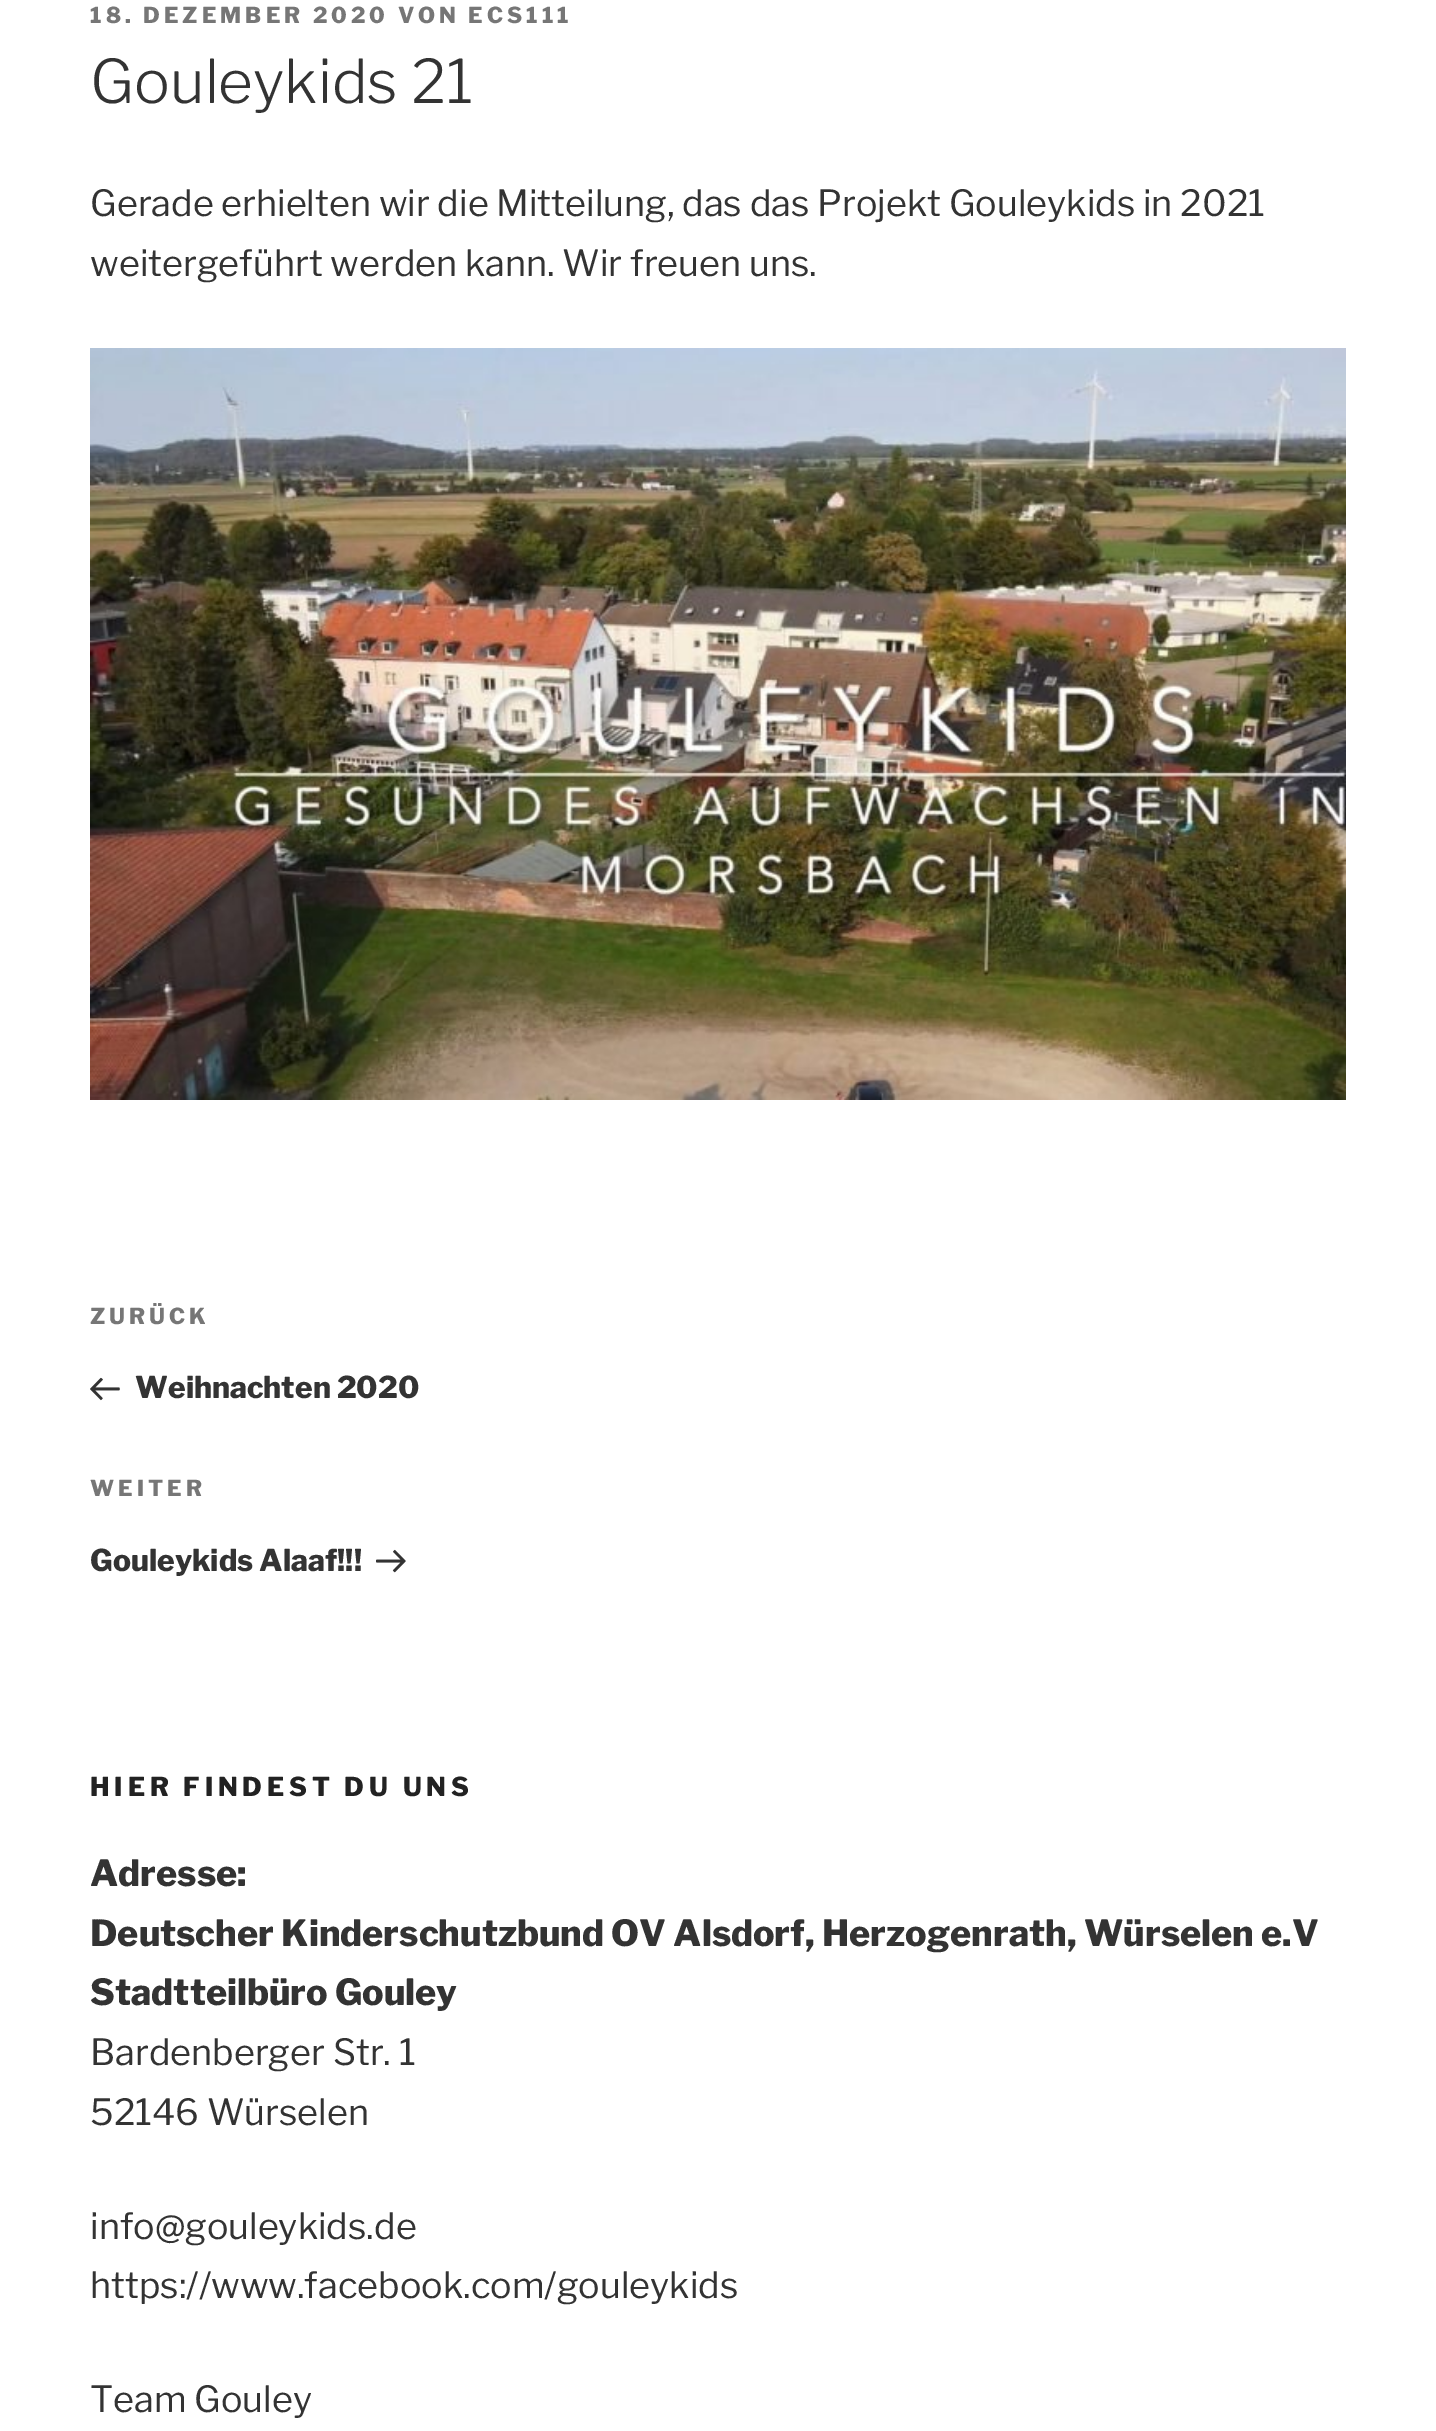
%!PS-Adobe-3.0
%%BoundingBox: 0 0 1436 2431
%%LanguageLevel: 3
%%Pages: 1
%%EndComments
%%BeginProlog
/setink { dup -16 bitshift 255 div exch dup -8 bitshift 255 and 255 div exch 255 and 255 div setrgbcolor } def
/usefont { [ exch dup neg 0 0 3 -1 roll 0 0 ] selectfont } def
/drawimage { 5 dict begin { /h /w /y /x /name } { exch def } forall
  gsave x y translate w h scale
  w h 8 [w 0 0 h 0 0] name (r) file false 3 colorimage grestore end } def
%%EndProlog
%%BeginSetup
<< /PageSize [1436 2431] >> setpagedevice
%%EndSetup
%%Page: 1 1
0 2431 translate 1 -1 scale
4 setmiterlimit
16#FFFFFF setink
0 0 1436 2431 rectfill
/LibreFranklin-Thin 22 usefont
16#767676 setink
90 23 moveto 4 0 (18. DEZEMBER 2020 VON ECS111) ashow
/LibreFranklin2-Thin 60 usefont
16#333333 setink
90 103 moveto (Gouleykids 21) show
/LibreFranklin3-Thin 36 usefont
90 216 moveto (Gerade erhielten wir die Mitteilung, das das Projekt Gouleykids in 2021) show
90 276 moveto (weitergeführt werden kann. Wir freuen uns.) show
(img1.raw) 90 348 1256 752 drawimage
/LibreFranklin-Thin 22 usefont
16#767676 setink
90 1324 moveto 4 0 (ZURÜCK) ashow
(img2.raw) 90 1377 30 24 drawimage
/LibreFranklin-Thin 30 usefont
16#333333 setink
135 1398 moveto (Weihnachten 2020) show
/LibreFranklin-Thin 22 usefont
16#767676 setink
90 1496 moveto 4 0 (WEITER) ashow
/LibreFranklin-Thin 30 usefont
16#333333 setink
90 1571 moveto (Gouleykids Alaaf!!!) show
(img3.raw) 376 1549 30 24 drawimage
/LibreFranklin-Thin 26 usefont
16#222222 setink
90 1796 moveto 4.75 0 (HIER FINDEST DU UNS) ashow
/LibreFranklin-Thin 36 usefont
16#333333 setink
[
    [(Adresse:) 90 1886]
    [(Deutscher Kinderschutzbund OV Alsdorf, Herzogenrath, Würselen e.V) 90 1946]
    [(Stadtteilbüro Gouley) 90 2005]
] { aload pop moveto show } forall
/LibreFranklin3-Thin 36 usefont
[
    [(Bardenberger Str. 1) 90 2065]
    [(52146 Würselen) 90 2125]
    [(info@gouleykids.de) 90 2239]
    [(https://www.facebook.com/gouleykids) 90 2298]
    [(Team Gouley) 90 2412]
] { aload pop moveto show } forall
showpage
%%EOF
